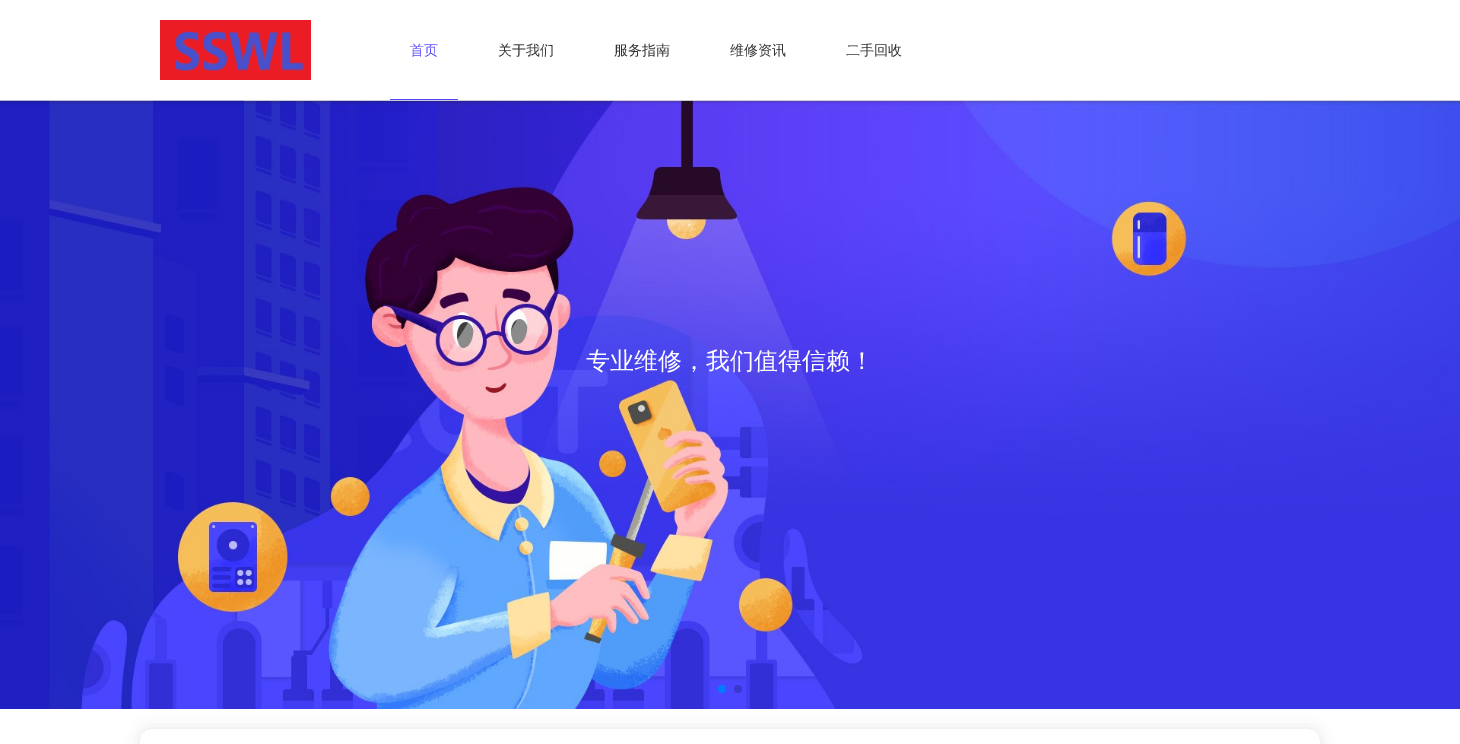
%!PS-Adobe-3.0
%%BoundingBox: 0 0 1460 744
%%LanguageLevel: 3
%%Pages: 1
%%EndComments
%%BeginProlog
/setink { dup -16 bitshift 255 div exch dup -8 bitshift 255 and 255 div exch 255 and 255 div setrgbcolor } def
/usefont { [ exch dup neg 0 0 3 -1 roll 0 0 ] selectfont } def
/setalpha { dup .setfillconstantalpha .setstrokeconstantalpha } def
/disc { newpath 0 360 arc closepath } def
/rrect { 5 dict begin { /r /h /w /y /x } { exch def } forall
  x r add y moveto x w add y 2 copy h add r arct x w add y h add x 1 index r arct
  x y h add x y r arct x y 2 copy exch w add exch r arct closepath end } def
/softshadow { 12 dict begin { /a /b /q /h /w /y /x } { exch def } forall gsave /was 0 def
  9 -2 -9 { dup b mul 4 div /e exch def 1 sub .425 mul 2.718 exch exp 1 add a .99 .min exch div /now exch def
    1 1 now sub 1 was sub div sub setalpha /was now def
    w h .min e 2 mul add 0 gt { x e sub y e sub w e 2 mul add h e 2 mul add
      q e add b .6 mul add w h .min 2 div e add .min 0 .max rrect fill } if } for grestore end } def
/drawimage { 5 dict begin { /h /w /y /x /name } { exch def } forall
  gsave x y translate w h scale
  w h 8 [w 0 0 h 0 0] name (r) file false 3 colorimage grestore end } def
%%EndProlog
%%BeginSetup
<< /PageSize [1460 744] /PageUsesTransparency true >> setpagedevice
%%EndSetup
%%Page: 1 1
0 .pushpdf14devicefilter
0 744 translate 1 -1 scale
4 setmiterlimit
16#FFFFFF setink
0 0 1460 744 rectfill
gsave
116 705 moveto 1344 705 lineto 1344 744 lineto 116 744 lineto closepath 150 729 moveto 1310 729 lineto 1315.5 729 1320 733.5 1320 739 curveto 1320 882 lineto 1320 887.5 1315.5 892 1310 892 curveto 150 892 lineto 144.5 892 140 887.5 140 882 curveto 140 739 lineto 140 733.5 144.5 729 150 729 curveto closepath eoclip newpath
16#000000 setink
140 729 1180 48 10 7.5 0.1 softshadow
grestore
(img2.raw) 0 100 1460 609 drawimage
gsave
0 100 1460 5 rectclip
16#000000 setink
0 3 1460 100 0 2 0.1 softshadow
grestore
(img1.raw) 160 20 151 60 drawimage
16#5646F9 setink
390 99 68 1 rectfill
/WenQuanYiZenHei-Medium 14 usefont
410 55 moveto (首页) show
16#333333 setink
[
    [(关于我们) 498 55]
    [(服务指南) 614 55]
    [(维修资讯) 730 55]
    [(二手回收) 846 55]
] { aload pop moveto show } forall
/WenQuanYiZenHei-Medium 24 usefont
16#FFFFFF setink
586 369 moveto (专业维修，我们值得信赖！) show
16#007AFF setink
722 689 4 disc fill
16#3B38CC setink
738 689 4 disc fill
.poppdf14devicefilter showpage
%%EOF
